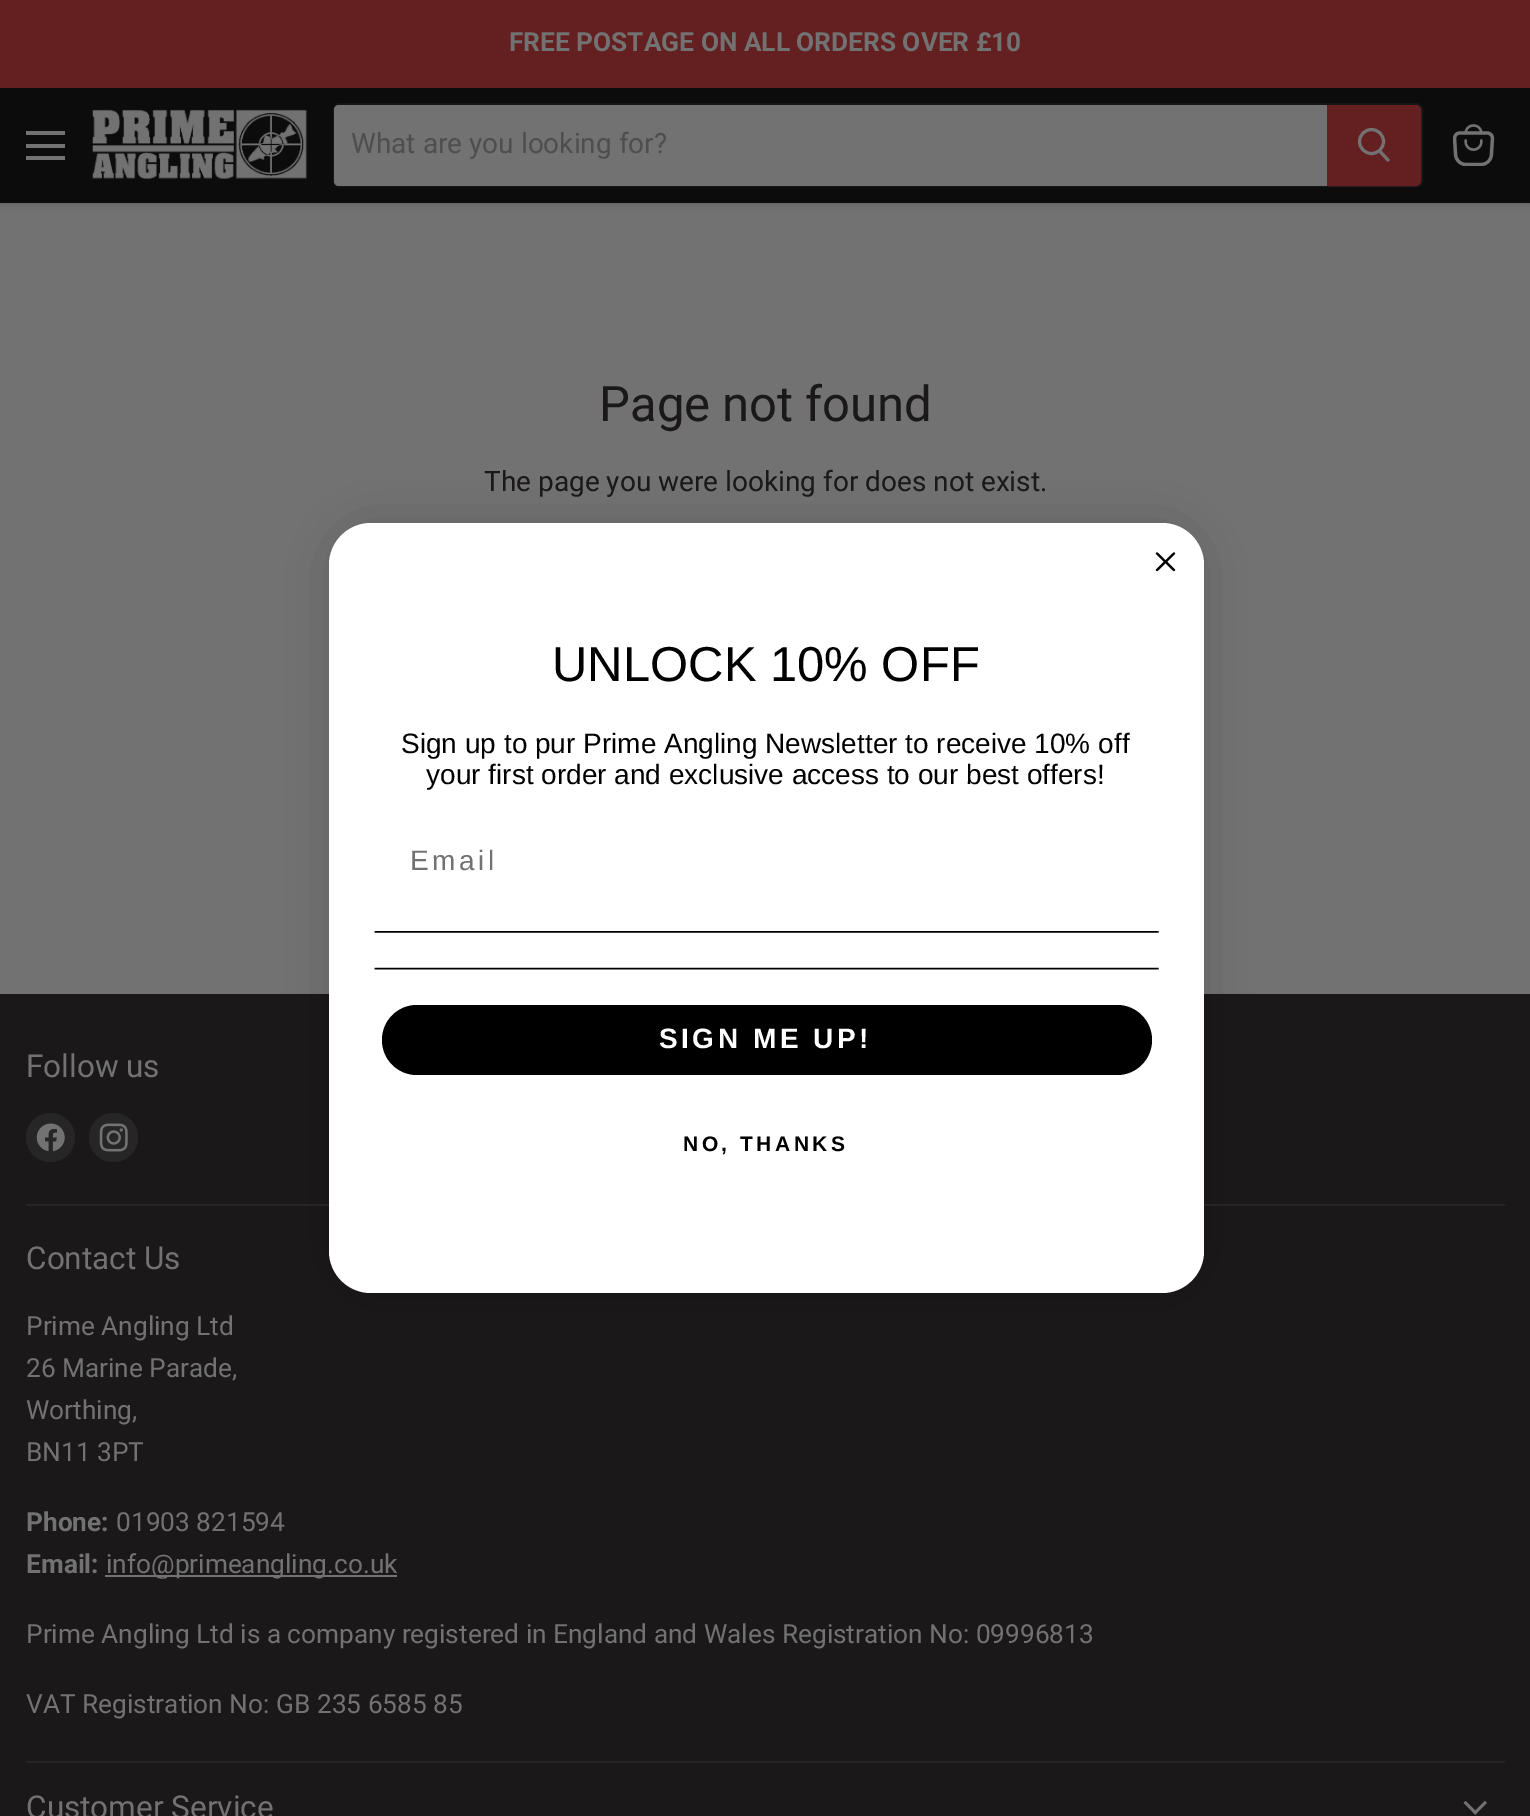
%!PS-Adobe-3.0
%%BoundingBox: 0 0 1530 1816
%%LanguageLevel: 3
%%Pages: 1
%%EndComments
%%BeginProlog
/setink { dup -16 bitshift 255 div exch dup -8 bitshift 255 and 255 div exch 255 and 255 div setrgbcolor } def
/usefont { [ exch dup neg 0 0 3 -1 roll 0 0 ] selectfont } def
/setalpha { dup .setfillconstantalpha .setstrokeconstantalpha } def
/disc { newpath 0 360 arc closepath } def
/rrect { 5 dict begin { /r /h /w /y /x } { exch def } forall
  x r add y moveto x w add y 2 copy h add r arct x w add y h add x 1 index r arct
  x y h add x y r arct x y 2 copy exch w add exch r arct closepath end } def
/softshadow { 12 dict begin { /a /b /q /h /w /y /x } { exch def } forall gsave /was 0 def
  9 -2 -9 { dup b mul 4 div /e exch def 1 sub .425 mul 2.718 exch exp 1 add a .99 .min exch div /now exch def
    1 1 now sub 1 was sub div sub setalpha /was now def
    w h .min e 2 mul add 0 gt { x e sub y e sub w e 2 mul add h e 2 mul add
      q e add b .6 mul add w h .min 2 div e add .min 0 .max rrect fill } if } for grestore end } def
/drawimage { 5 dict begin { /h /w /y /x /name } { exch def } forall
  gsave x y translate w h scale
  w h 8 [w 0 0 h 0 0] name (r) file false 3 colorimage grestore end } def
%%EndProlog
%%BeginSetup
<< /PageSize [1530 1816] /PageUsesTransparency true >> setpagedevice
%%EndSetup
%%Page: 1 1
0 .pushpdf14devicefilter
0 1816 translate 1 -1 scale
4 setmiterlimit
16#727272 setink
0 0 1530 1816 rectfill
16#3F3F3F setink
0 89 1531 116 0 3.5 0.25 softshadow
16#642020 setink
0 0 1530 88 rectfill
/Roboto-Bold 26.25 usefont
16#727272 setink
509 51 moveto (FREE POSTAGE ON ALL ORDERS OVER £10) show
[
    [0 88 1530 115 16#0C0C0C]
    [26 131 39 4 16#727272]
    [26 144 39 4 16#727272]
    [26 156 39 4 16#727272]
] { aload pop setink rectfill } forall
(img1.raw) 92 109 215 70 drawimage
0.2 setalpha
16#3F3F3F setink
2 setlinewidth
334 104 1088 82 6 rrect stroke
1 setalpha
16#727272 setink
339 105 moveto 1327 105 lineto 1327 186 lineto 339 186 lineto 336 186 334 184 334 181 curveto 334 110 lineto 334 107 336 105 339 105 curveto closepath fill
/Roboto-Regular 28 usefont
16#4F4E4E setink
351 153 moveto (What are you looking for?) show
16#642020 setink
1328 106 moveto 1416 106 lineto 1418 106 1420 108 1420 110 curveto 1420 181 lineto 1420 183 1418 185 1416 185 curveto 1328 185 lineto closepath gsave fill grestore
stroke
16#727272 setink
3 setlinewidth
1 setlinecap
1388 160 moveto 1380 151.5 lineto stroke
0 setlinecap
1371.5 141.5 12 disc stroke
(img2.raw) 1453 124 42 42 drawimage
/Roboto-Regular 49 usefont
16#1A1819 setink
599 421 moveto (Page not found) show
/Roboto-Regular 28 usefont
484 491 moveto (The page you were looking for does not exist.) show
0 994 1530 822 rectfill
16#272626 setink
26 1204 1479 2 rectfill
16#000000 setink
329 523 875 770 42 26 0.15 softshadow
16#FFFFFF setink
329 523 875 770 42 rrect fill
16#000000 setink
2.1 setlinewidth
1 setlinecap
1 setlinejoin
1157 553.5 moveto 1174 570 lineto 1157 570 moveto 1174 553.5 lineto closepath stroke
/LiberationSans-Regular 49 usefont
552 681 moveto (UNLOCK 10% OFF) show
/LiberationSans-Regular 28 usefont
401 753 moveto (Sign up to pur Prime Angling Newsletter to receive 10% off) show
426 784 moveto (your first order and exclusive access to our best offers!) show
16#727272 setink
410 870 moveto 3.5 0 (Email) ashow
(img3.raw) 373 931 786 2 drawimage
(img4.raw) 373 967 786 3 drawimage
16#000000 setink
382 1005 770 70 35 rrect fill
/LiberationSans-Bold 28 usefont
16#FFFFFF setink
659 1048 moveto 3.5 0 (SIGN ME UP!) ashow
/LiberationSans-Bold 21 usefont
16#000000 setink
683 1151 moveto 3.5 0 (NO, THANKS) ashow
/Roboto-Regular 31.5 usefont
16#727272 setink
26 1077 moveto (Follow us) show
16#272626 setink
50.5 1137.5 24.5 disc fill
(img5.raw) 36 1123 29 29 drawimage
113.5 1137.5 24.5 disc fill
(img6.raw) 99 1123 29 29 drawimage
26 1761 1479 2 rectfill
16#727272 setink
26 1269 moveto (Contact Us) show
/Roboto-Regular 26.25 usefont
[
    [(Prime Angling Ltd) 26 1335]
    [(26 Marine Parade,) 26 1377]
    [(Worthing,) 26 1419]
    [(BN11 3PT) 26 1461]
] { aload pop moveto show } forall
/Roboto-Bold 26.25 usefont
26 1531 moveto (Phone:) show
/Roboto-Regular 26.25 usefont
116 1531 moveto (01903 821594) show
/Roboto-Bold 26.25 usefont
26 1573 moveto (Email:) show
105 1575 292 2 rectfill
/Roboto-Regular 26.25 usefont
[
    [(info@primeangling.co.uk) 106 1573]
    [(Prime Angling Ltd is a company registered in England and Wales Registration No: 09996813) 26 1643]
    [(VAT Registration No: GB 235 6585 85) 26 1713]
] { aload pop moveto show } forall
/Roboto-Regular 31.5 usefont
26 1818 moveto (Customer Service) show
(img7.raw) 1463 1801 24 14 drawimage
.poppdf14devicefilter showpage
%%EOF
